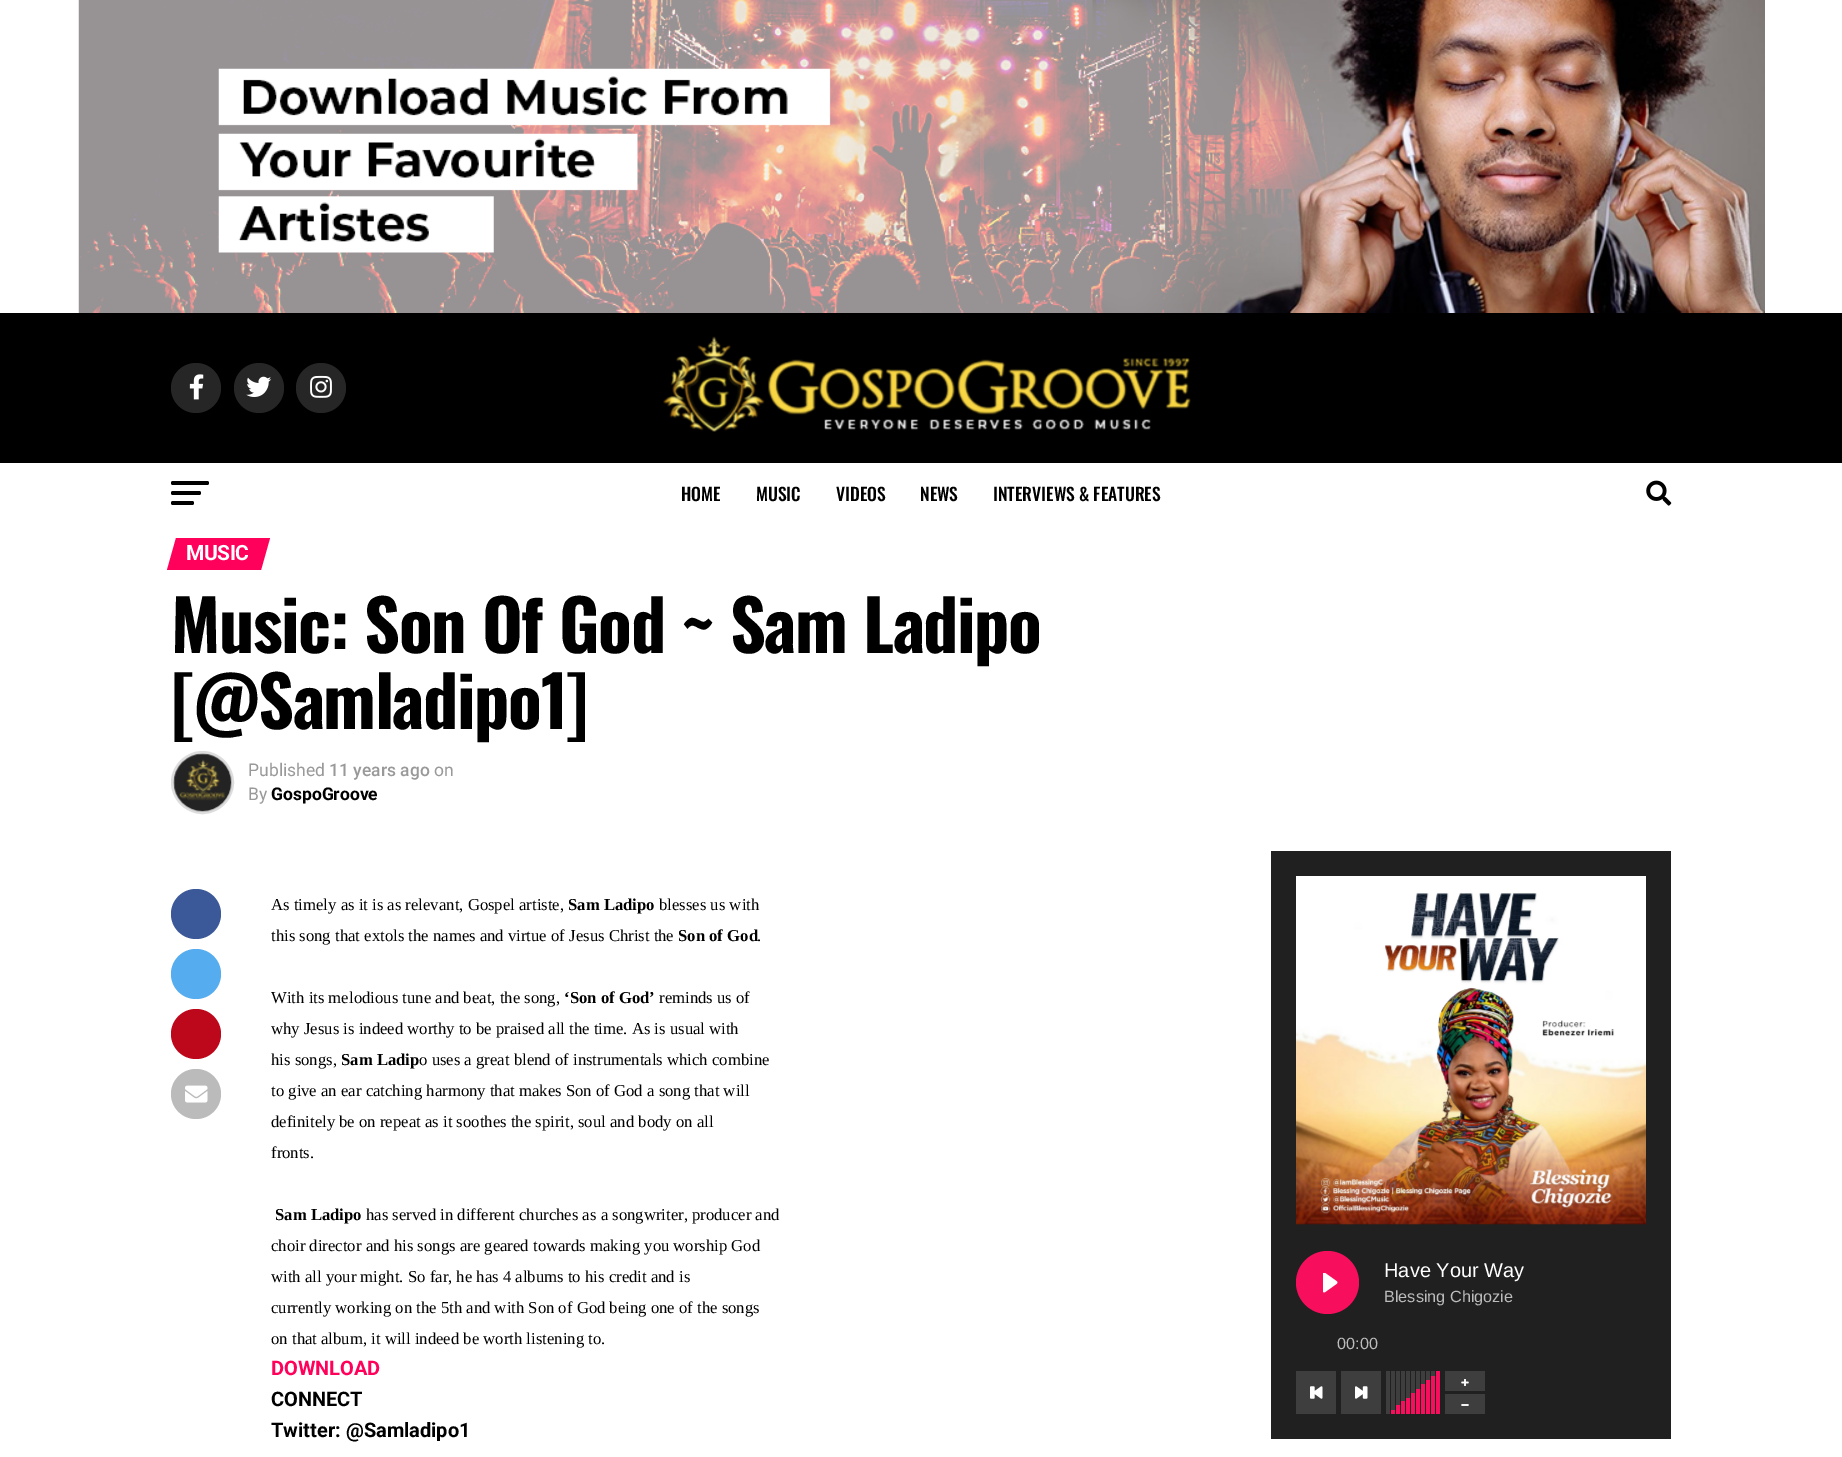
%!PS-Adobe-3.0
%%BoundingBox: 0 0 1842 1457
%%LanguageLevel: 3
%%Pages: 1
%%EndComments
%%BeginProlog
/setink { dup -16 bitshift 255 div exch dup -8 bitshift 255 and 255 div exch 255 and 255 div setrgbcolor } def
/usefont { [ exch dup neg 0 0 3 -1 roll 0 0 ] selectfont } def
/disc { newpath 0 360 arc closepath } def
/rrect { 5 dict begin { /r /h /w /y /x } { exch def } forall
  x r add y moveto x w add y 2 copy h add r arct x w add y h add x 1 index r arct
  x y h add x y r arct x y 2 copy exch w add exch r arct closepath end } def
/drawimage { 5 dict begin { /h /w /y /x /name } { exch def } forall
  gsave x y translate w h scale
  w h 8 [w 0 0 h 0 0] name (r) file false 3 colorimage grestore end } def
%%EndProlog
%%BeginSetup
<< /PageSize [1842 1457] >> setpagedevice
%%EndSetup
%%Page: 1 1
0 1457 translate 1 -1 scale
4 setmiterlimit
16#FFFFFF setink
0 0 1842 1457 rectfill
(img1.raw) 78 0 1687 313 drawimage
16#000000 setink
0 313 1842 150 rectfill
16#262626 setink
196 388 25 disc fill
(img2.raw) 189 374 15 26 drawimage
259 388 25 disc fill
(img3.raw) 246 376 26 21 drawimage
321 388 25 disc fill
(img4.raw) 310 375 22 23 drawimage
(img5.raw) 663 336 528 96 drawimage
16#000000 setink
171 481 38 4 2 rrect fill
171 491 30 4 2 rrect fill
171 501 23 4 2 rrect fill
/Oswald-Medium 17.5 usefont
[
    [(HOME) 681 501]
    [(MUSIC) 756 501]
    [(VIDEOS) 836 501]
    [(NEWS) 920 501]
    [(INTERVIEWS & FEATURES) 993 501]
] { aload pop moveto show } forall
(img6.raw) 1646 480 26 26 drawimage
16#FF005B setink
176 538 moveto 270 538 lineto 261 570 lineto 167 570 lineto closepath fill
/Roboto-Bold 21 usefont
16#FFFFFF setink
186 560 moveto -0.5 0 (MUSIC) ashow
/Oswald-Bold 70 usefont
16#000000 setink
171 653 moveto -1.4 0 (Music: Son Of God ~ Sam Ladipo) ashow
171 729 moveto -1.4 0 ([@Samladipo1]) ashow
16#DDDDDD setink
3 setlinewidth
202.5 782.5 30 disc stroke
(img7.raw) 173 753 59 59 drawimage
/Roboto-Regular 17.5 usefont
16#999999 setink
248 776 moveto (Published) show
/Roboto-Medium 17.5 usefont
329 776 moveto (11 years ago) show
/Roboto-Regular 17.5 usefont
434 776 moveto (on) show
248 800 moveto (By) show
/Roboto-Bold 17.5 usefont
16#000000 setink
271 800 moveto (GospoGroove) show
16#3B5998 setink
196 914 25 disc fill
16#55ACEE setink
196 974 25 disc fill
16#BD081C setink
196 1034 25 disc fill
16#BBBBBB setink
196 1094 25 disc fill
(img8.raw) 185 1085 23 18 drawimage
/LiberationSerif-Regular 16.7 usefont
16#000000 setink
271 910 moveto (As timely as it is as relevant, Gospel artiste,) show
/LiberationSerif-Bold 16.7 usefont
568 910 moveto (Sam Ladipo) show
/LiberationSerif-Regular 16.7 usefont
659 910 moveto (blesses us with) show
271 941 moveto (this song that extols the names and virtue of Jesus Christ the) show
/LiberationSerif-Bold 16.7 usefont
678 941 moveto (Son of God) show
/LiberationSerif-Regular 16.7 usefont
757 941 moveto (.) show
271 1003 moveto (With its melodious tune and beat, the song,) show
/LiberationSerif-Bold 16.7 usefont
564 1003 moveto (‘Son of God’) show
/LiberationSerif-Regular 16.7 usefont
[
    [(reminds us of) 659 1003]
    [(why Jesus is indeed worthy to be praised all the time. As is usual with) 271 1034]
    [(his songs,) 271 1065]
] { aload pop moveto show } forall
/LiberationSerif-Bold 16.7 usefont
341 1065 moveto (Sam Ladip) show
/LiberationSerif-Regular 16.7 usefont
[
    [(o uses a great blend of instrumentals which combine) 419 1065]
    [(to give an ear catching harmony that makes Son of God a song that will) 271 1096]
    [(definitely be on repeat as it soothes the spirit, soul and body on all) 271 1127]
    [(fronts.) 271 1158]
] { aload pop moveto show } forall
/LiberationSerif-Bold 16.7 usefont
275 1220 moveto (Sam Ladipo) show
/LiberationSerif-Regular 16.7 usefont
[
    [(has served in different churches as a songwriter, producer and) 366 1220]
    [(choir director and his songs are geared towards making you worship God) 271 1251]
    [(with all your might. So far, he has 4 albums to his credit and is) 271 1282]
    [(currently working on the 5th and with Son of God being one of the songs) 271 1313]
    [(on that album, it will indeed be worth listening to.) 271 1344]
] { aload pop moveto show } forall
/Roboto-Bold 20 usefont
16#FF005B setink
271 1375 moveto (DOWNLOAD) show
16#000000 setink
271 1406 moveto (CONNECT) show
271 1437 moveto (Twitter: @Samladipo1) show
16#202020 setink
1271 851 400 588 rectfill
(img9.raw) 1296 876 350 349 drawimage
16#F70F5D setink
1327.5 1282.5 31.5 disc fill
(img10.raw) 1323 1273 15 20 drawimage
/LiberationSans-Regular 20 usefont
16#FFFFFF setink
1384 1277 moveto (Have Your Way) show
/LiberationSans-Regular 16.25 usefont
16#BCBCBC setink
1384 1302 moveto (Blessing Chigozie) show
1337 1349 moveto (00:00) show
16#3E3E3E setink
1296 1371 40 43 rectfill
(img11.raw) 1310 1386 13 13 drawimage
1341 1371 40 43 rectfill
(img12.raw) 1355 1386 13 13 drawimage
[
    [1386 1371 4 43 16#3E3E3E]
    [1391 1371 4 43 16#3E3E3E]
    [1391 1410 4 4 16#F70F5D]
    [1396 1371 4 34 16#3E3E3E]
    [1396 1405 4 9 16#F70F5D]
    [1401 1371 4 30 16#3E3E3E]
    [1401 1401 4 13 16#F70F5D]
    [1406 1371 4 27 16#3E3E3E]
    [1406 1398 4 16 16#F70F5D]
    [1411 1371 4 22 16#3E3E3E]
    [1411 1393 4 21 16#F70F5D]
    [1416 1371 4 18 16#3E3E3E]
    [1416 1389 4 25 16#F70F5D]
    [1421 1371 4 13 16#3E3E3E]
    [1421 1384 4 30 16#F70F5D]
    [1426 1371 4 9 16#3E3E3E]
    [1426 1380 4 34 16#F70F5D]
    [1431 1371 4 5 16#3E3E3E]
    [1431 1376 4 38 16#F70F5D]
    [1436 1371 4 43 16#F70F5D]
    [1445 1371 40 20 16#3E3E3E]
] { aload pop setink rectfill } forall
(img13.raw) 1461 1379 8 7 drawimage
1445 1394 40 20 rectfill
(img14.raw) 1461 1404 8 2 drawimage
showpage
%%EOF
